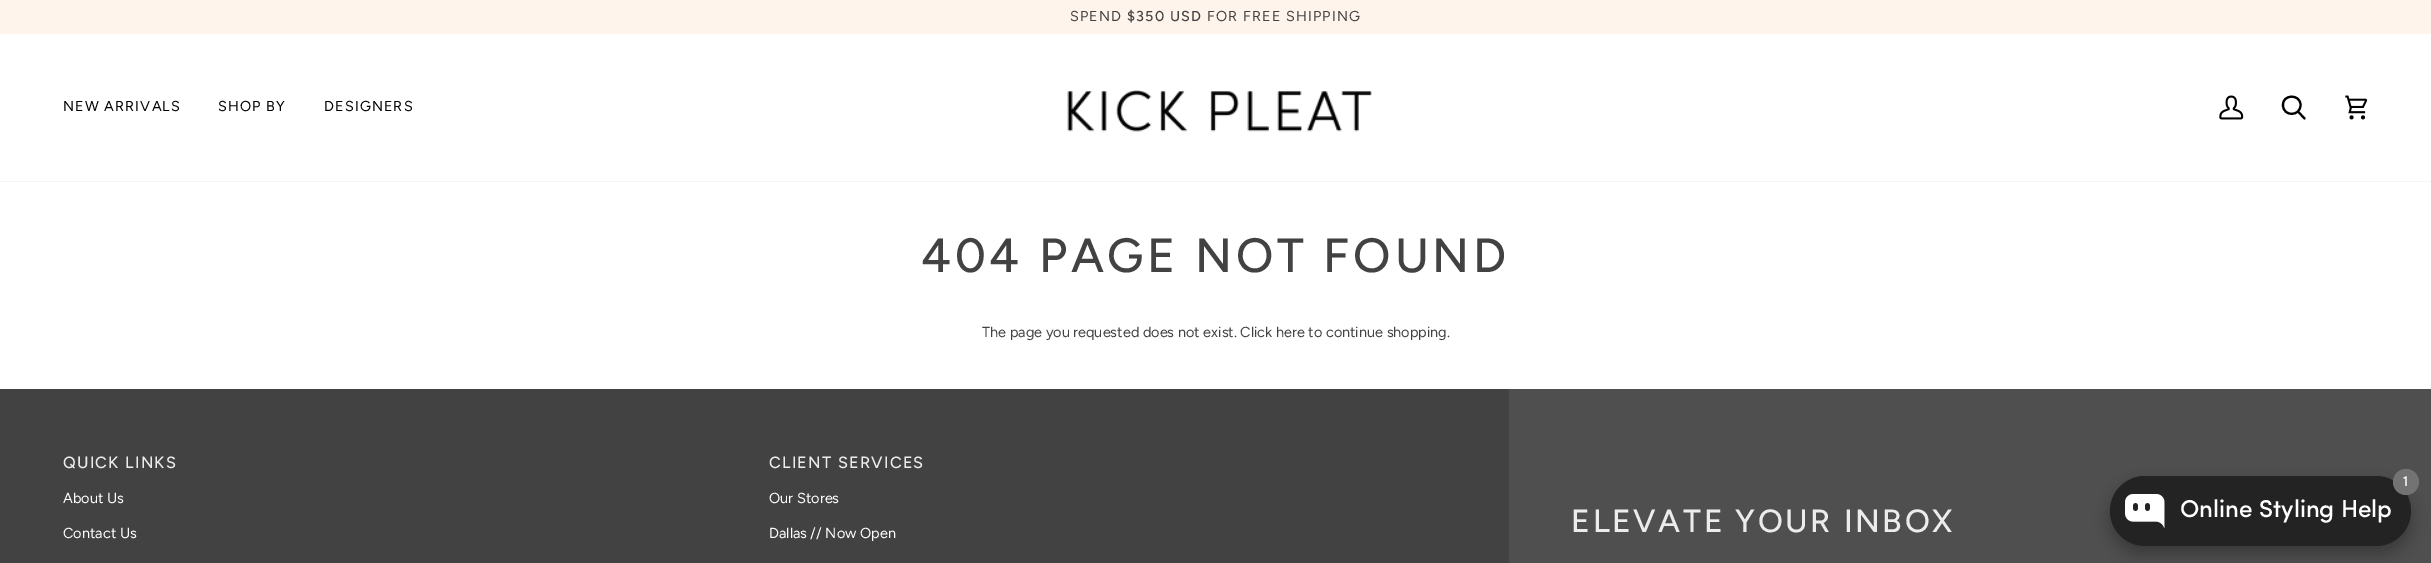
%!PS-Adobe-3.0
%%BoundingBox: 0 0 2431 563
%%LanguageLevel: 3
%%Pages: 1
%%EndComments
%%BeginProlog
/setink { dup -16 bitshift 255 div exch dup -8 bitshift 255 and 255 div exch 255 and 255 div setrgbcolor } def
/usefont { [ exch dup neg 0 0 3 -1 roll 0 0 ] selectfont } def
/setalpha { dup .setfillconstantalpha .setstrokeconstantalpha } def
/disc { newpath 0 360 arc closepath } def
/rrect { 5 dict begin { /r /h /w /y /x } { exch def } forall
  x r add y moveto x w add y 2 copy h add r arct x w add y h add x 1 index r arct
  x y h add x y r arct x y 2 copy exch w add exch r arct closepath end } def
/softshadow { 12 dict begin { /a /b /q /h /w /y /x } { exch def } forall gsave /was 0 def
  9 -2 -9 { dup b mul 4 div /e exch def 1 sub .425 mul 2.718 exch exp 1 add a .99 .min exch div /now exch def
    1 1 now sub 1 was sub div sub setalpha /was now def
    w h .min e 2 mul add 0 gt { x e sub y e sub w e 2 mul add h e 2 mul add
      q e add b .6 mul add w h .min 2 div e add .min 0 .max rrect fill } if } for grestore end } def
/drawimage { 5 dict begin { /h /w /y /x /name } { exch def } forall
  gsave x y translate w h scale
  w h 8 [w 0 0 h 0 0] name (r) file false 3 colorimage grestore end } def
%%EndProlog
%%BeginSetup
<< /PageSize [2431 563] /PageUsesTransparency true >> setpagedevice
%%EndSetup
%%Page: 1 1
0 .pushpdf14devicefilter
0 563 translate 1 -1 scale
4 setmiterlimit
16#FFFFFF setink
0 0 2431 563 rectfill
16#FFF4EC setink
0 0 2431 34 rectfill
/Figtree-Regular 14.4 usefont
16#424242 setink
1070 21 moveto 1.1 0 (SPEND) ashow
/Figtree-Medium 14.4 usefont
1127 21 moveto 1.1 0 ($350 USD) ashow
/Figtree-Regular 14.4 usefont
1207 21 moveto 1.1 0 (FOR FREE SHIPPING) ashow
16#F7F5F4 setink
0 181 2431 1 rectfill
16#000000 setink
63 111 moveto 1.1 0 (NEW ARRIVALS) ashow
218 111 moveto 1.1 0 (SHOP BY) ashow
324 111 moveto 1.1 0 (DESIGNERS) ashow
(img1.raw) 1067 90 305 42 drawimage
(img2.raw) 2219 95 25 25 drawimage
2.1 setlinewidth
1 setlinecap
1 setlinejoin
2300.5 105 moveto 2300.5 116.5 2283.5 117 2283 105.5 curveto 2282 94 2300.5 93.5 2300.5 105 curveto closepath 2304.5 118.5 moveto 2298 111.5 lineto closepath stroke
(img3.raw) 2345 95 23 25 drawimage
/Figtree-Medium 48 usefont
16#424242 setink
921 272 moveto 3.8 0 (404 PAGE NOT FOUND) ashow
/Figtree-Regular 14.5 usefont
982 337 moveto (The page you requested does not exist. Click here to continue shopping.) show
0 389 1509 174 rectfill
/Figtree-Medium 16.25 usefont
16#ECECEC setink
63 468 moveto 1.25 0 (QUICK LINKS) ashow
/Figtree-Regular 14.5 usefont
16#FFFFFF setink
63 503 moveto (About Us) show
63 538 moveto (Contact Us) show
/Figtree-Medium 16.25 usefont
16#ECECEC setink
769 468 moveto 1.25 0 (CLIENT SERVICES) ashow
/Figtree-Regular 14.5 usefont
16#FFFFFF setink
769 503 moveto (Our Stores) show
769 538 moveto (Dallas // Now Open) show
16#4F4F4F setink
1509 389 922 174 rectfill
/Figtree-Medium 32 usefont
16#ECECEC setink
1571 532 moveto 2.6 0 (ELEVATE YOUR INBOX) ashow
16#000000 setink
2110 484 301 70 35 7.5 0.25 softshadow
16#232323 setink
2110 476 301 70 35 rrect fill
16#737373 setink
2406 482 13 disc fill
/Sofia-Medium 15 usefont
16#FFFFFF setink
2403 486 moveto (1) show
(img4.raw) 2125 494 40 34 drawimage
/Sofia-Medium 24.5 usefont
2180 517 moveto (Online Styling Help) show
.poppdf14devicefilter showpage
%%EOF
